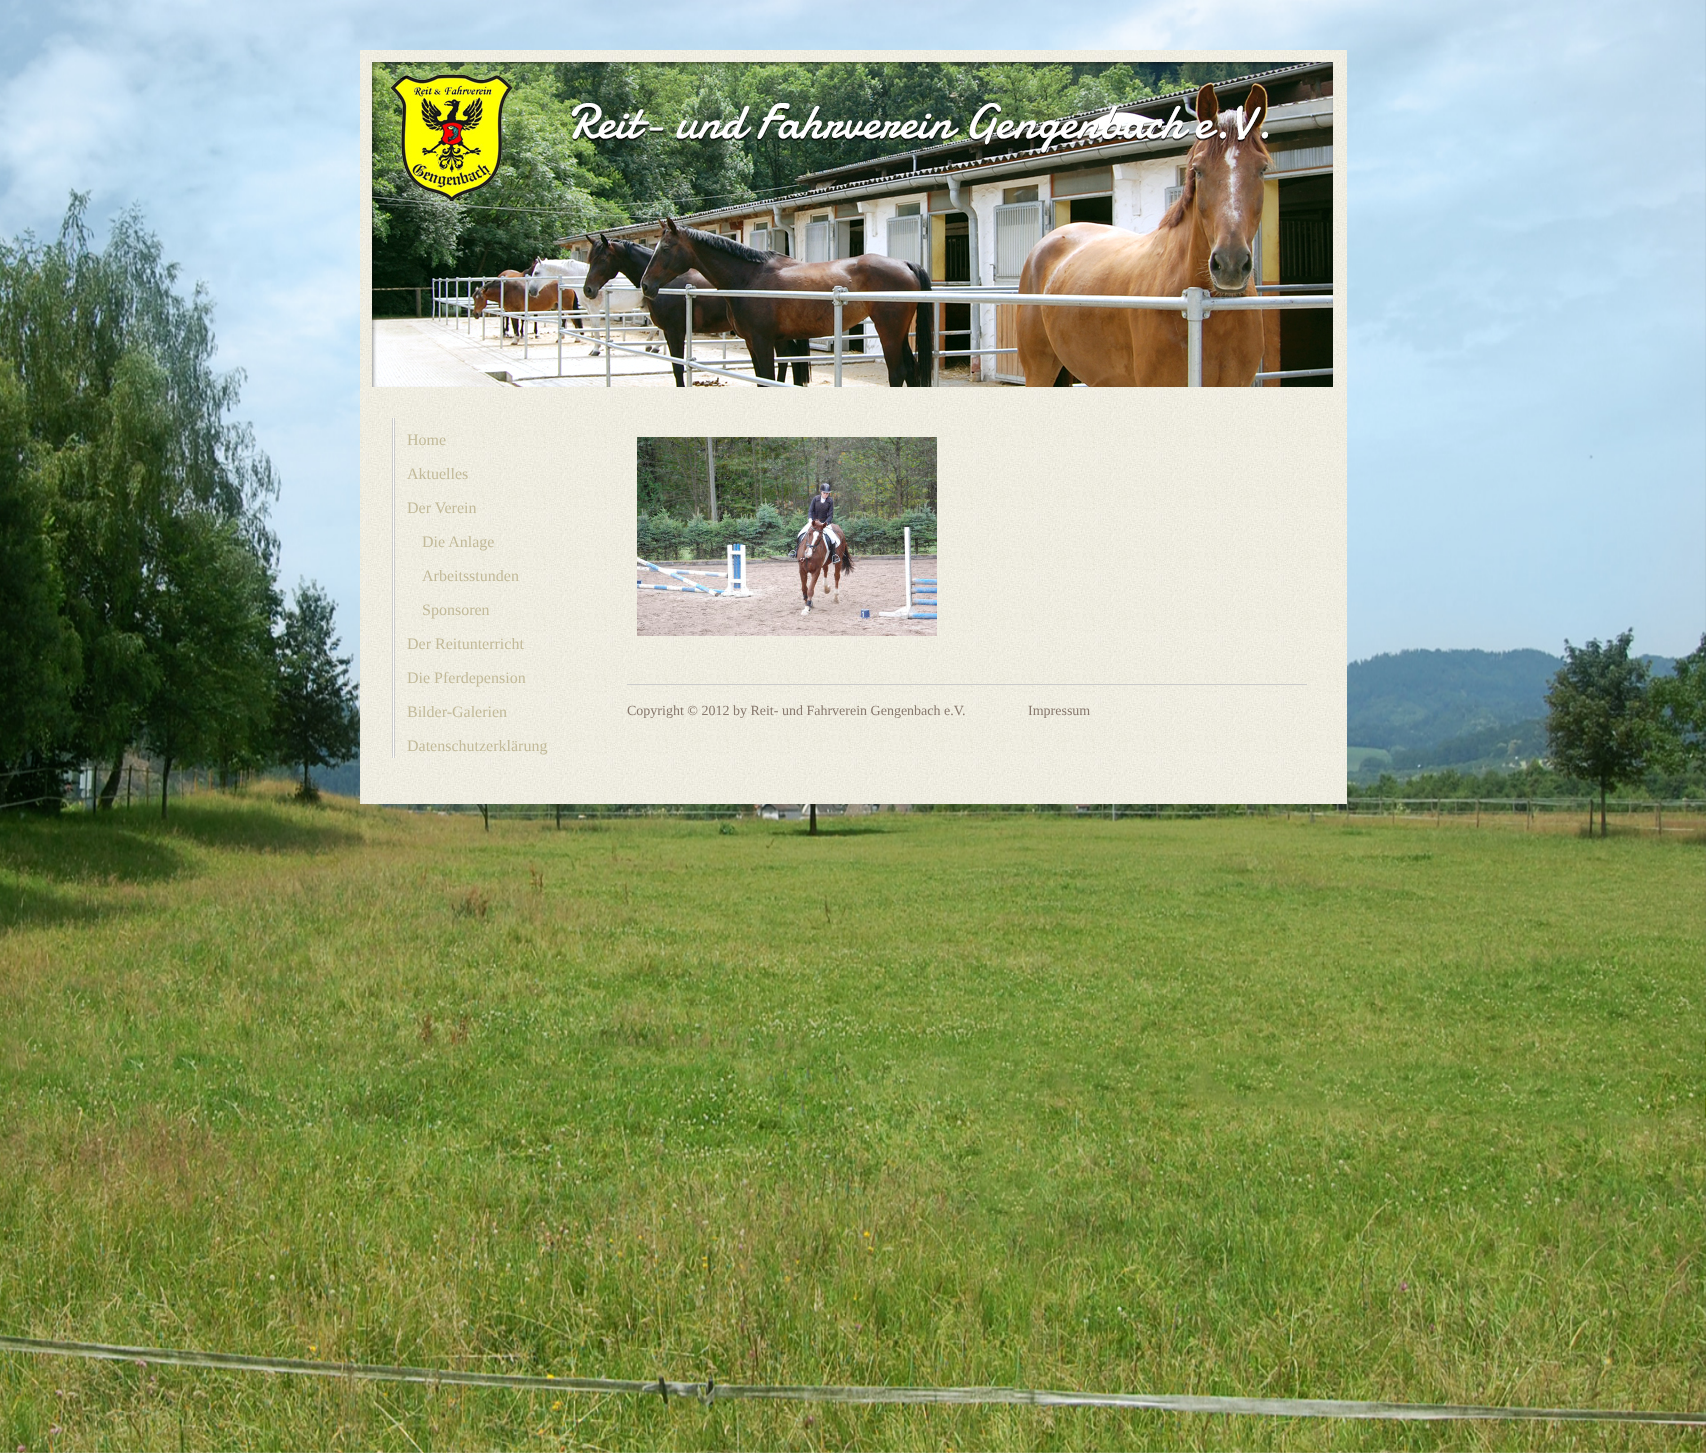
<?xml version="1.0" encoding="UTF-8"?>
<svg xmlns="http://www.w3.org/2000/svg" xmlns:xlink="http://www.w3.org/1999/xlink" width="1706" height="1453">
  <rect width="100%" height="100%" fill="#ffffff" />
  <image x="0" y="0" width="1706" height="1453" xlink:href="image1.png" />
  <image x="360" y="50" width="987" height="337" xlink:href="image2.png" />
  <image x="372" y="62" width="961" height="325" xlink:href="image3.png" />
  <image x="360" y="387" width="987" height="417" xlink:href="image4.png" />
  <image x="392" y="418" width="3" height="340" xlink:href="image5.png" />
  <image x="637" y="437" width="300" height="199" xlink:href="image6.png" />
  <rect x="627" y="684" width="680" height="1" fill="#cccccc" />
  <text x="407" y="445" style="font-family: Liberation Serif; font-size: 16px; fill: #c2ba99">Home</text>
  <text x="407" y="479" style="font-family: Liberation Serif; font-size: 16px; fill: #c2ba99">Aktuelles</text>
  <text x="407" y="513" style="font-family: Liberation Serif; font-size: 16px; fill: #c2ba99">Der Verein</text>
  <text x="422" y="547" style="font-family: Liberation Serif; font-size: 16px; fill: #c2ba99">Die Anlage</text>
  <text x="422" y="581" style="font-family: Liberation Serif; font-size: 16px; fill: #c2ba99">Arbeitsstunden</text>
  <text x="422" y="615" style="font-family: Liberation Serif; font-size: 16px; fill: #c2ba99">Sponsoren</text>
  <text x="407" y="649" style="font-family: Liberation Serif; font-size: 16px; fill: #c2ba99">Der Reitunterricht</text>
  <text x="407" y="683" style="font-family: Liberation Serif; font-size: 16px; fill: #c2ba99">Die Pferdepension</text>
  <text x="407" y="717" style="font-family: Liberation Serif; font-size: 16px; fill: #c2ba99">Bilder-Galerien</text>
  <text x="407" y="751" style="font-family: Liberation Serif; font-size: 16px; fill: #c2ba99">Datenschutzerklärung</text>
  <text x="627" y="715" style="font-family: Liberation Serif; font-size: 14px; fill: #87786d">Copyright © 2012 by Reit- und Fahrverein Gengenbach e.V.</text>
  <text x="1028" y="715" style="font-family: Liberation Serif; font-size: 14px; fill: #87786d">Impressum</text>
</svg>
